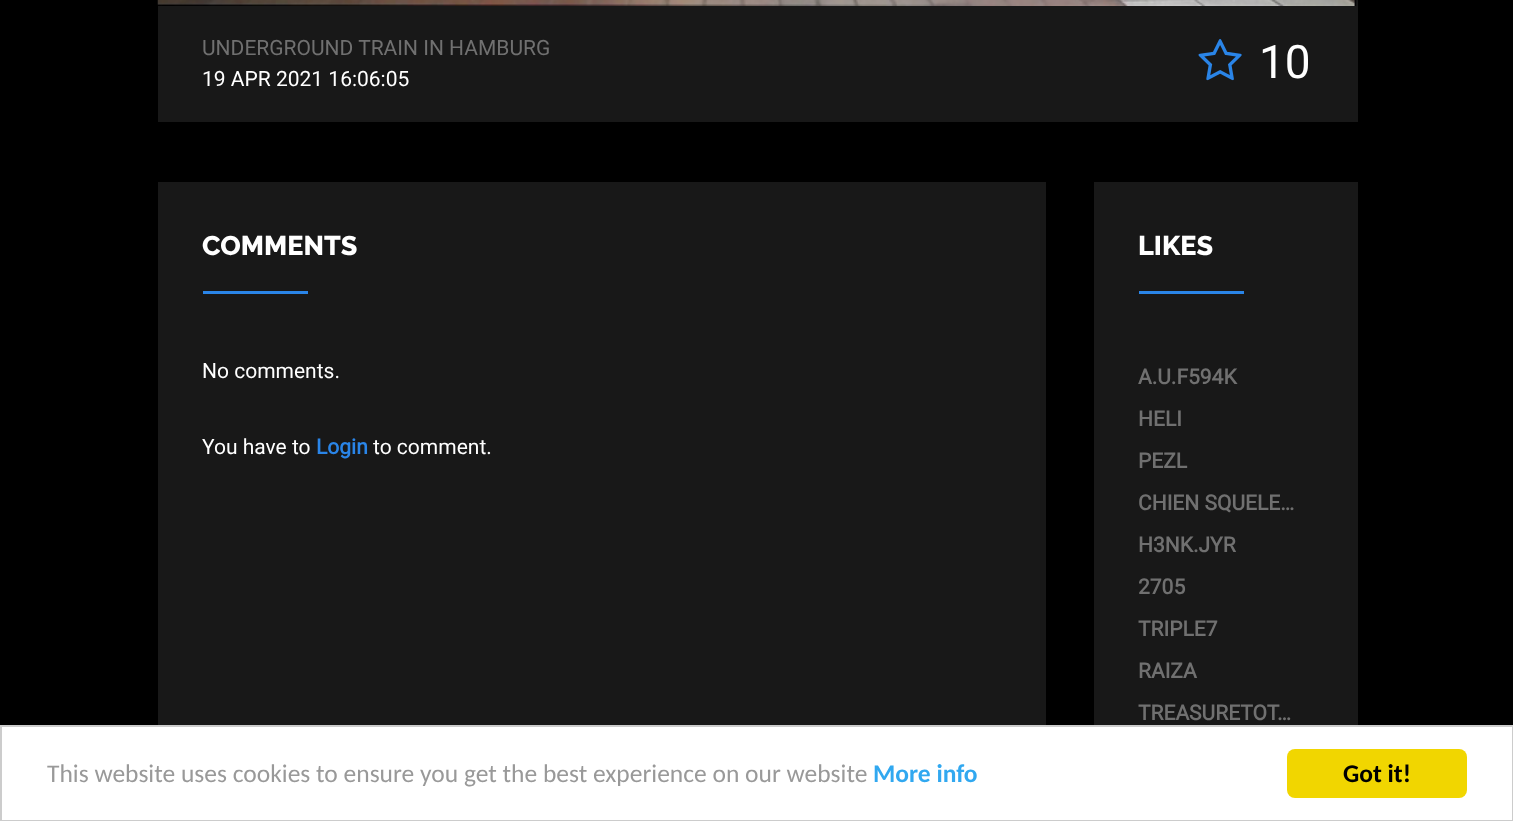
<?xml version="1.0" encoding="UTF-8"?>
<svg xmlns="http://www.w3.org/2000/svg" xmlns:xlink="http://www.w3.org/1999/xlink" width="1513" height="821">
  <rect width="100%" height="100%" fill="#000000" />
  <rect x="158" width="1200" height="122" fill="#181818" />
  <image x="157" y="0" width="1200" height="6" xlink:href="image1.png" />
  <image x="1198" y="39" width="44" height="42" xlink:href="image2.png" />
  <rect x="158" y="182" width="888" height="543" fill="#181818" />
  <rect x="203" y="291" width="105" height="3" fill="#2a85e8" />
  <rect x="1094" y="182" width="264" height="543" fill="#181818" />
  <rect x="1139" y="291" width="105" height="3" fill="#2a85e8" />
  <rect x="1" y="726" width="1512" height="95" fill="#ffffff" stroke="#cccccc" stroke-width="2" />
  <rect x="1287" y="749" width="180" height="49" rx="8" fill="#f1d600" />
  <text x="202" y="55" style="font-family: Roboto; font-size: 21px; fill: #707070">UNDERGROUND TRAIN IN HAMBURG</text>
  <text x="202" y="86" style="font-family: Roboto; font-size: 21px; fill: #ffffff">19 APR 2021 16:06:05</text>
  <text x="1259" y="78" style="font-family: Roboto; font-size: 46px; fill: #ffffff">10</text>
  <text x="202" y="255" style="font-family: Raleway; font-size: 27px; font-weight: 800; fill: #ffffff">COMMENTS</text>
  <text x="202" y="378" style="font-family: Roboto; font-size: 21px; fill: #ffffff">No comments.</text>
  <text x="202" y="454" style="font-family: Roboto; font-size: 21px; fill: #ffffff">You have to</text>
  <text x="316" y="454" style="font-family: Roboto; font-size: 21px; font-weight: bold; fill: #2a85e8">Login</text>
  <text x="373" y="454" style="font-family: Roboto; font-size: 21px; fill: #ffffff">to comment.</text>
  <text x="1138" y="255" style="font-family: Raleway; font-size: 27px; font-weight: 800; fill: #ffffff">LIKES</text>
  <text x="1138" y="384" style="font-family: Roboto; font-size: 21px; font-weight: bold; fill: #707070">A.U.F594K</text>
  <text x="1138" y="426" style="font-family: Roboto; font-size: 21px; font-weight: bold; fill: #707070">HELI</text>
  <text x="1138" y="468" style="font-family: Roboto; font-size: 21px; font-weight: bold; fill: #707070">PEZL</text>
  <text x="1138" y="510" style="font-family: Roboto; font-size: 21px; font-weight: bold; fill: #707070">CHIEN SQUELE…</text>
  <text x="1138" y="552" style="font-family: Roboto; font-size: 21px; font-weight: bold; fill: #707070">H3NK.JYR</text>
  <text x="1138" y="594" style="font-family: Roboto; font-size: 21px; font-weight: bold; fill: #707070">2705</text>
  <text x="1138" y="636" style="font-family: Roboto; font-size: 21px; font-weight: bold; fill: #707070">TRIPLE7</text>
  <text x="1138" y="678" style="font-family: Roboto; font-size: 21px; font-weight: bold; fill: #707070">RAIZA</text>
  <text x="1138" y="720" style="font-family: Roboto; font-size: 21px; font-weight: bold; fill: #707070">TREASURETOT…</text>
  <text x="47" y="782" style="font-family: Carlito; font-size: 25.5px; fill: #999999">This website uses cookies to ensure you get the best experience on our website</text>
  <text x="873" y="782" style="font-family: Carlito; font-size: 25.5px; font-weight: bold; fill: #31a8f0">More info</text>
  <text x="1343" y="782" style="font-family: Carlito; font-size: 25.5px; font-weight: bold; fill: #000000">Got it!</text>
</svg>
